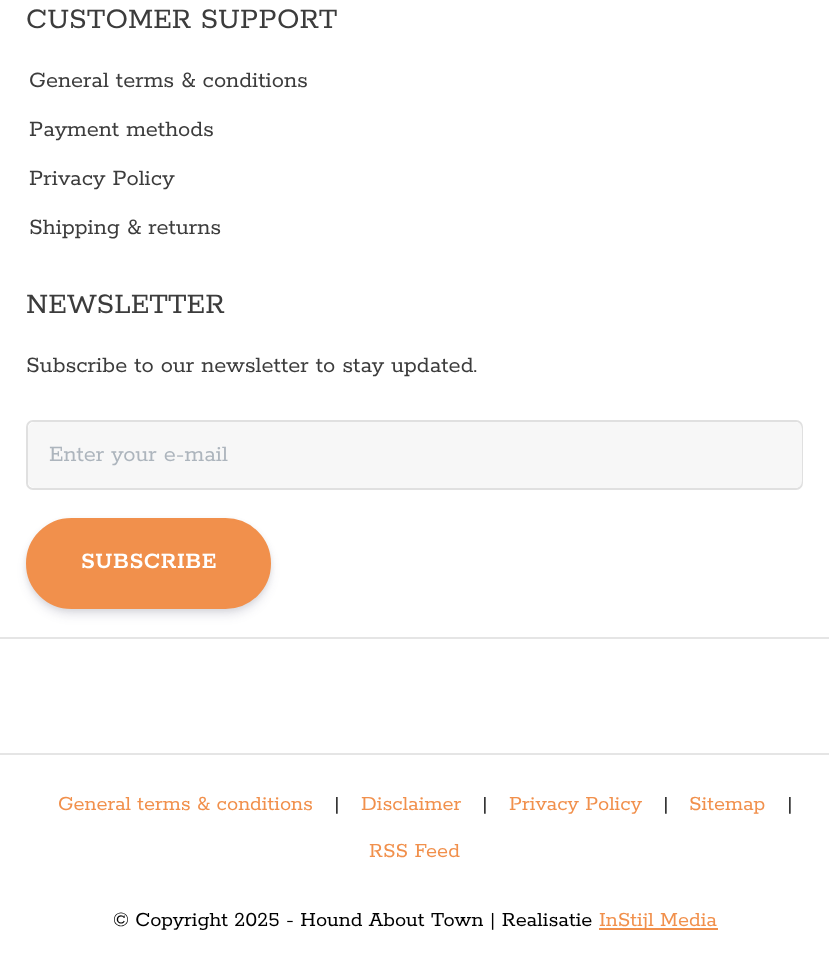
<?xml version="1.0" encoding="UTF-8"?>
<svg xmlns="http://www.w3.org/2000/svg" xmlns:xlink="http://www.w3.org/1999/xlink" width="829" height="966">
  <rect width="100%" height="100%" fill="#ffffff" />
  <rect x="27" y="421" width="775" height="68" rx="6" fill="none" stroke="#e0e0e0" stroke-width="2" />
  <rect x="28" y="422" width="774" height="66" rx="7" fill="#f7f7f7" />
  <rect x="26" y="520" width="245" height="91" rx="45.5" fill="#000000" fill-opacity="0.08" filter="blur(2.5px)" />
  <rect x="26" y="525" width="245" height="91" rx="45.5" fill="#32325d" fill-opacity="0.11" filter="blur(5px)" />
  <rect x="27" y="519" width="243" height="89" rx="44.5" fill="#f1904c" stroke="#f1904c" stroke-width="2" />
  <rect y="637" width="829" height="2" fill="#e5e5e5" />
  <rect y="753" width="829" height="2" fill="#e5e5e5" />
  <rect x="599" y="928" width="119" height="2" fill="#f1904c" />
  <text x="26" y="28" style="font-family: Rokkitt; font-size: 31.5px; fill: #3c3c3c">CUSTOMER SUPPORT</text>
  <text x="29" y="87" style="font-family: Rokkitt; font-size: 24.5px; fill: #3c3c3c">General terms &amp; conditions</text>
  <text x="29" y="136" style="font-family: Rokkitt; font-size: 24.5px; fill: #3c3c3c">Payment methods</text>
  <text x="29" y="185" style="font-family: Rokkitt; font-size: 24.5px; fill: #3c3c3c">Privacy Policy</text>
  <text x="29" y="234" style="font-family: Rokkitt; font-size: 24.5px; fill: #3c3c3c">Shipping &amp; returns</text>
  <text x="26" y="313" style="font-family: Rokkitt; font-size: 31.5px; fill: #3c3c3c">NEWSLETTER</text>
  <text x="26" y="372" style="font-family: Rokkitt; font-size: 24.5px; fill: #3c3c3c">Subscribe to our newsletter to stay updated.</text>
  <text x="49" y="461" style="font-family: Rokkitt; font-size: 24.5px; fill: #adb5bd">Enter your e-mail</text>
  <text x="81" y="568" style="font-family: Rokkitt; font-size: 24.5px; font-weight: 600; letter-spacing: 0.5px; fill: #ffffff">SUBSCRIBE</text>
  <text x="58" y="810" style="font-family: Rokkitt; font-size: 22.4px; fill: #f1904c">General terms &amp; conditions</text>
  <text x="334" y="810" style="font-family: Rokkitt; font-size: 22.4px; fill: #000000">|</text>
  <text x="361" y="810" style="font-family: Rokkitt; font-size: 22.4px; fill: #f1904c">Disclaimer</text>
  <text x="482" y="810" style="font-family: Rokkitt; font-size: 22.4px; fill: #000000">|</text>
  <text x="509" y="810" style="font-family: Rokkitt; font-size: 22.4px; fill: #f1904c">Privacy Policy</text>
  <text x="663" y="810" style="font-family: Rokkitt; font-size: 22.4px; fill: #000000">|</text>
  <text x="689" y="810" style="font-family: Rokkitt; font-size: 22.4px; fill: #f1904c">Sitemap</text>
  <text x="787" y="810" style="font-family: Rokkitt; font-size: 22.4px; fill: #000000">|</text>
  <text x="369" y="857" style="font-family: Rokkitt; font-size: 22.4px; fill: #f1904c">RSS Feed</text>
  <text x="113" y="926" style="font-family: Rokkitt; font-size: 22.4px; fill: #000000">© Copyright 2025 - Hound About Town | Realisatie</text>
  <text x="599" y="926" style="font-family: Rokkitt; font-size: 22.4px; fill: #f1904c">InStijl Media</text>
</svg>
